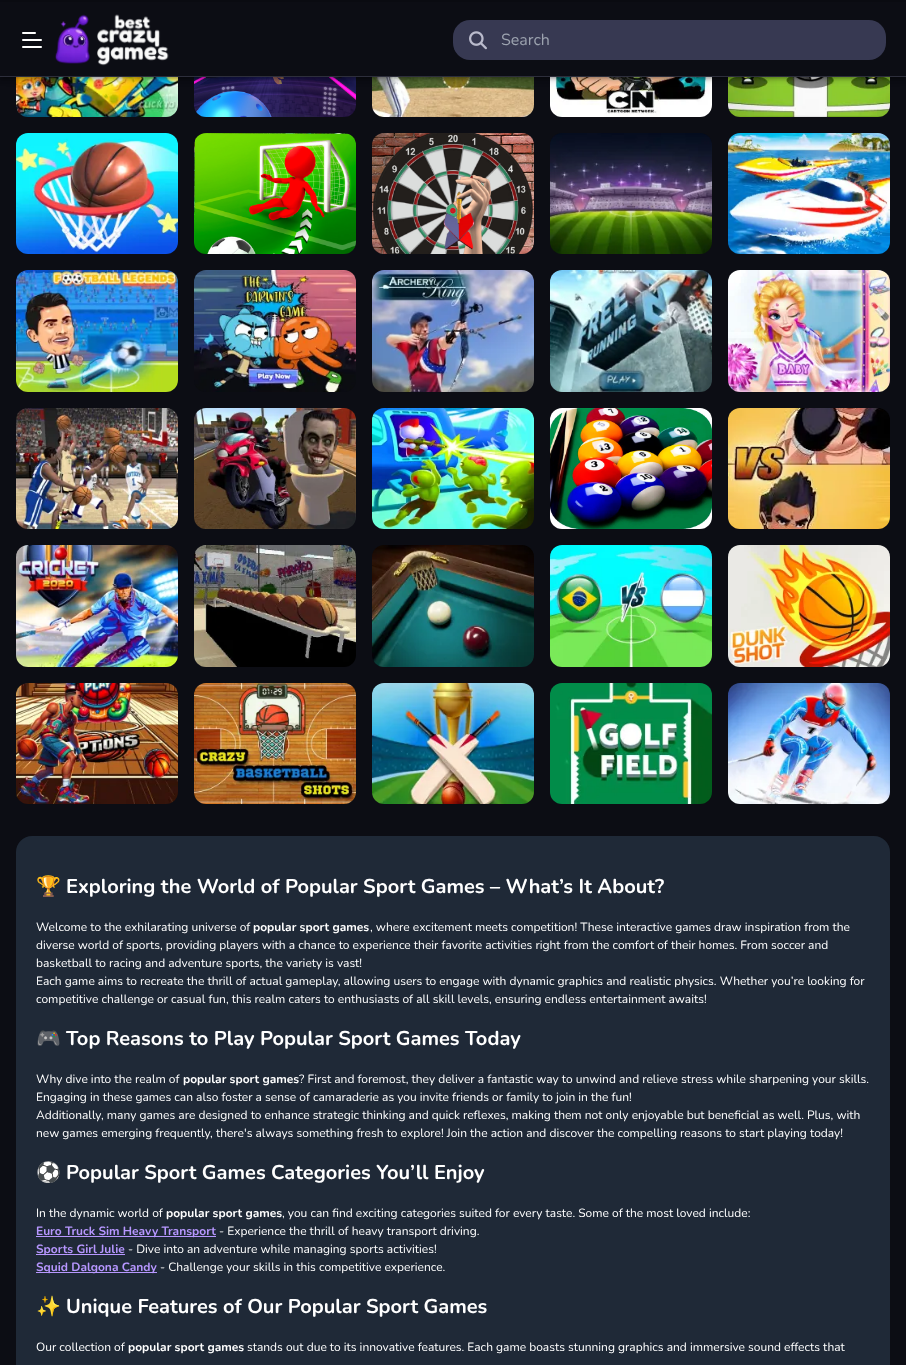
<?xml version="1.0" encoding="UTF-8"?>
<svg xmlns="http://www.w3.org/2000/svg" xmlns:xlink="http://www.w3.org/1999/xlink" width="906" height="1365">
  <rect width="100%" height="100%" fill="#0c0d14" />
  <image x="16" y="77" width="162" height="40" xlink:href="image4.png" />
  <image x="194" y="77" width="162" height="40" xlink:href="image5.png" />
  <image x="372" y="77" width="162" height="40" xlink:href="image6.png" />
  <image x="550" y="77" width="162" height="40" xlink:href="image7.png" />
  <image x="728" y="77" width="162" height="40" xlink:href="image8.png" />
  <rect y="1" width="906" height="77" fill="#000000" fill-opacity="0.12" filter="blur(4px)" />
  <rect y="3" width="906" height="77" fill="#000000" fill-opacity="0.14" filter="blur(2px)" />
  <rect x="2" y="5" width="902" height="73" fill="#000000" fill-opacity="0.2" filter="blur(1.5px)" />
  <rect y="2" width="906" height="74" fill="#0c0d14" />
  <rect y="76" width="906" height="1" fill="#2d2e3b" />
  <image x="22" y="32" width="20" height="16" xlink:href="image1.png" />
  <image x="55" y="14" width="114" height="52" xlink:href="image2.png" />
  <rect x="453" y="20" width="433" height="40" rx="17" fill="#373952" />
  <image x="469" y="31" width="18" height="19" xlink:href="image3.png" />
  <image x="16" y="133" width="162" height="121" xlink:href="image9.png" />
  <image x="194" y="133" width="162" height="121" xlink:href="image10.png" />
  <image x="372" y="133" width="162" height="121" xlink:href="image11.png" />
  <image x="550" y="133" width="162" height="121" xlink:href="image12.png" />
  <image x="728" y="133" width="162" height="121" xlink:href="image13.png" />
  <image x="16" y="270" width="162" height="122" xlink:href="image14.png" />
  <image x="194" y="270" width="162" height="122" xlink:href="image15.png" />
  <image x="372" y="270" width="162" height="122" xlink:href="image16.png" />
  <image x="550" y="270" width="162" height="122" xlink:href="image17.png" />
  <image x="728" y="270" width="162" height="122" xlink:href="image18.png" />
  <image x="16" y="408" width="162" height="121" xlink:href="image19.png" />
  <image x="194" y="408" width="162" height="121" xlink:href="image20.png" />
  <image x="372" y="408" width="162" height="121" xlink:href="image21.png" />
  <image x="550" y="408" width="162" height="121" xlink:href="image22.png" />
  <image x="728" y="408" width="162" height="121" xlink:href="image23.png" />
  <image x="16" y="545" width="162" height="122" xlink:href="image24.png" />
  <image x="194" y="545" width="162" height="122" xlink:href="image25.png" />
  <image x="372" y="545" width="162" height="122" xlink:href="image26.png" />
  <image x="550" y="545" width="162" height="122" xlink:href="image27.png" />
  <image x="728" y="545" width="162" height="122" xlink:href="image28.png" />
  <image x="16" y="683" width="162" height="121" xlink:href="image29.png" />
  <image x="194" y="683" width="162" height="121" xlink:href="image30.png" />
  <image x="372" y="683" width="162" height="121" xlink:href="image31.png" />
  <image x="550" y="683" width="162" height="121" xlink:href="image32.png" />
  <image x="728" y="683" width="162" height="121" xlink:href="image33.png" />
  <rect x="16" y="836" width="874" height="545" rx="16" fill="#1f2937" />
  <rect x="36" y="1236" width="180" height="1" fill="#b797ff" />
  <rect x="36" y="1254" width="89" height="1" fill="#b797ff" />
  <rect x="36" y="1272" width="121" height="1" fill="#b797ff" />
  <text x="501" y="45" style="font-family: Nunito; font-size: 16px; fill: #9ca3af">Search</text>
  <text x="36" y="893" style="font-family: Noto Color Emoji; font-size: 20px; font-weight: bold; fill: #ffffff">🏆</text>
  <text x="66" y="893" style="font-family: Nunito; font-size: 20px; font-weight: bold; fill: #ffffff">Exploring the World of Popular Sport Games – What’s It About?</text>
  <text x="36" y="931" style="font-family: Nunito; font-size: 12px; fill: #ffffff">Welcome to the exhilarating universe of</text>
  <text x="253" y="931" style="font-family: Nunito; font-size: 12px; font-weight: bold; fill: #ffffff">popular sport games</text>
  <text x="370" y="931" style="font-family: Nunito; font-size: 12px; fill: #ffffff">, where excitement meets competition! These interactive games draw inspiration from the</text>
  <text x="36" y="949" style="font-family: Nunito; font-size: 12px; fill: #ffffff">diverse world of sports, providing players with a chance to experience their favorite activities right from the comfort of their homes. From soccer and</text>
  <text x="36" y="967" style="font-family: Nunito; font-size: 12px; fill: #ffffff">basketball to racing and adventure sports, the variety is vast!</text>
  <text x="36" y="985" style="font-family: Nunito; font-size: 12px; fill: #ffffff">Each game aims to recreate the thrill of actual gameplay, allowing users to engage with dynamic graphics and realistic physics. Whether you’re looking for</text>
  <text x="36" y="1003" style="font-family: Nunito; font-size: 12px; fill: #ffffff">competitive challenge or casual fun, this realm caters to enthusiasts of all skill levels, ensuring endless entertainment awaits!</text>
  <text x="36" y="1045" style="font-family: Noto Color Emoji; font-size: 20px; font-weight: bold; fill: #ffffff">🎮</text>
  <text x="66" y="1045" style="font-family: Nunito; font-size: 20px; font-weight: bold; fill: #ffffff">Top Reasons to Play Popular Sport Games Today</text>
  <text x="36" y="1083" style="font-family: Nunito; font-size: 12px; fill: #ffffff">Why dive into the realm of</text>
  <text x="183" y="1083" style="font-family: Nunito; font-size: 12px; font-weight: bold; fill: #ffffff">popular sport games</text>
  <text x="299" y="1083" style="font-family: Nunito; font-size: 12px; fill: #ffffff">? First and foremost, they deliver a fantastic way to unwind and relieve stress while sharpening your skills.</text>
  <text x="36" y="1101" style="font-family: Nunito; font-size: 12px; fill: #ffffff">Engaging in these games can also foster a sense of camaraderie as you invite friends or family to join in the fun!</text>
  <text x="36" y="1119" style="font-family: Nunito; font-size: 12px; fill: #ffffff">Additionally, many games are designed to enhance strategic thinking and quick reflexes, making them not only enjoyable but beneficial as well. Plus, with</text>
  <text x="36" y="1137" style="font-family: Nunito; font-size: 12px; fill: #ffffff">new games emerging frequently, there's always something fresh to explore! Join the action and discover the compelling reasons to start playing today!</text>
  <text x="36" y="1179" style="font-family: Noto Color Emoji; font-size: 20px; font-weight: bold; fill: #ffffff">⚽</text>
  <text x="66" y="1179" style="font-family: Nunito; font-size: 20px; font-weight: bold; fill: #ffffff">Popular Sport Games Categories You’ll Enjoy</text>
  <text x="36" y="1217" style="font-family: Nunito; font-size: 12px; fill: #ffffff">In the dynamic world of</text>
  <text x="166" y="1217" style="font-family: Nunito; font-size: 12px; font-weight: bold; fill: #ffffff">popular sport games</text>
  <text x="282" y="1217" style="font-family: Nunito; font-size: 12px; fill: #ffffff">, you can find exciting categories suited for every taste. Some of the most loved include:</text>
  <text x="36" y="1235" style="font-family: Nunito; font-size: 12px; font-weight: bold; fill: #b797ff">Euro Truck Sim Heavy Transport</text>
  <text x="219" y="1235" style="font-family: Nunito; font-size: 12px; fill: #ffffff">- Experience the thrill of heavy transport driving.</text>
  <text x="36" y="1253" style="font-family: Nunito; font-size: 12px; font-weight: bold; fill: #b797ff">Sports Girl Julie</text>
  <text x="128" y="1253" style="font-family: Nunito; font-size: 12px; fill: #ffffff">- Dive into an adventure while managing sports activities!</text>
  <text x="36" y="1271" style="font-family: Nunito; font-size: 12px; font-weight: bold; fill: #b797ff">Squid Dalgona Candy</text>
  <text x="160" y="1271" style="font-family: Nunito; font-size: 12px; fill: #ffffff">- Challenge your skills in this competitive experience.</text>
  <text x="36" y="1313" style="font-family: Noto Color Emoji; font-size: 20px; font-weight: bold; fill: #ffffff">✨</text>
  <text x="66" y="1313" style="font-family: Nunito; font-size: 20px; font-weight: bold; fill: #ffffff">Unique Features of Our Popular Sport Games</text>
  <text x="36" y="1351" style="font-family: Nunito; font-size: 12px; fill: #ffffff">Our collection of</text>
  <text x="128" y="1351" style="font-family: Nunito; font-size: 12px; font-weight: bold; fill: #ffffff">popular sport games</text>
  <text x="247" y="1351" style="font-family: Nunito; font-size: 12px; fill: #ffffff">stands out due to its innovative features. Each game boasts stunning graphics and immersive sound effects that</text>
</svg>
